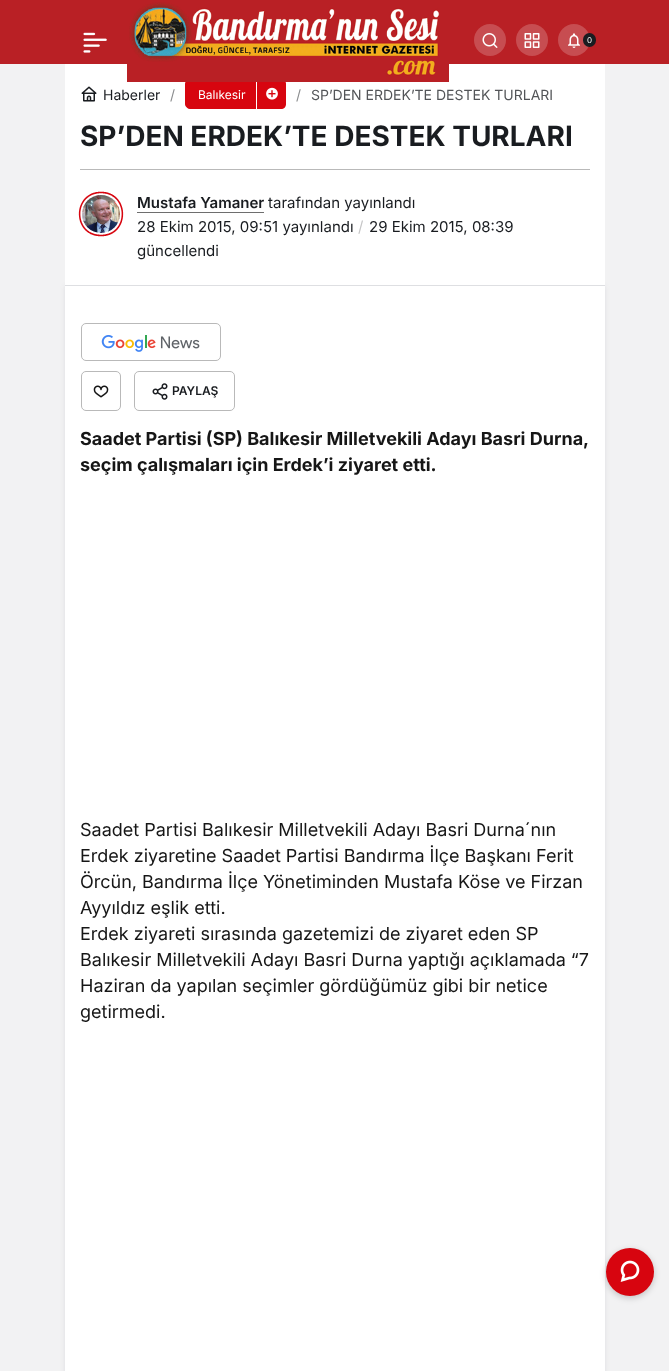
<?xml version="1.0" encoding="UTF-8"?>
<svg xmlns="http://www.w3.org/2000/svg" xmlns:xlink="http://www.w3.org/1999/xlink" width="669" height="1371">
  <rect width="100%" height="100%" fill="#f2f2f3" />
  <rect width="669" height="64" fill="#b92025" />
  <image x="83" y="32" width="24" height="21" xlink:href="image1.png" />
  <rect x="65" y="286" width="540" height="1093" fill="#32353d" fill-opacity="0.1" filter="blur(2.5px)" />
  <rect x="65" y="64" width="540" height="221" fill="#ffffff" />
  <path d="M 190 79.5 h 68.5 v 29 h -68.5 c -2.5 0 -4.5 -2 -4.5 -4.5 v -20 c 0 -2.5 2 -4.5 4.5 -4.5 z" fill="#d7050f" stroke="#d7050f" />
  <path d="M 256 79 h 25 c 3 0 5 2 5 5 v 20 c 0 3 -2 5 -5 5 h -25 z" fill="#d7050f" />
  <rect x="256" y="79" width="1" height="30" fill="#ffffff" />
  <image x="127" y="2" width="322" height="80" xlink:href="image2.png" />
  <circle cx="490" cy="40" r="16" fill="#c74d51" />
  <image x="482" y="33" width="16" height="15" xlink:href="image3.png" />
  <circle cx="532" cy="40" r="16" fill="#c74d51" />
  <image x="524" y="33" width="16" height="15" xlink:href="image4.png" />
  <circle cx="574" cy="40" r="16" fill="#c74d51" />
  <image x="568" y="33" width="12" height="15" xlink:href="image5.png" />
  <rect x="583" y="33" width="13" height="14" rx="6.5" fill="#191c20" />
  <rect x="65" y="285" width="540" height="1" fill="#dedfe2" />
  <image x="81" y="86" width="16" height="16" xlink:href="image6.png" />
  <image x="266" y="87" width="12" height="13" xlink:href="image7.png" />
  <rect x="80" y="169" width="510" height="1" fill="#b9b9b9" />
  <image x="82" y="195" width="38" height="38" xlink:href="image8.png" />
  <path d="M 101 192.5 c 28.5 0 28.5 43 0 43 c -28.5 0 -28.5 -43 0 -43 z" fill="none" stroke="#d7050f" stroke-width="1.6" stroke-linecap="round" stroke-dasharray="0.54 0.54" />
  <rect x="137" y="212" width="127" height="1" fill="#6e6e6e" />
  <rect x="65" y="286" width="540" height="1085" fill="#ffffff" />
  <image x="101" y="335" width="99" height="17" xlink:href="image9.png" />
  <rect x="81.5" y="323.5" width="139" height="37" rx="4.5" fill="none" stroke="#b9b9b9" />
  <rect x="81.5" y="371.5" width="39" height="39" rx="4.5" fill="none" stroke="#b9b9b9" />
  <image x="93" y="385" width="16" height="13" xlink:href="image10.png" />
  <rect x="134.5" y="371.5" width="100" height="39" rx="4.5" fill="none" stroke="#b9b9b9" />
  <image x="152" y="383" width="16" height="17" xlink:href="image11.png" />
  <rect x="606" y="1250" width="48" height="48" rx="24" fill="#000000" fill-opacity="0.2" filter="blur(3px)" />
  <circle cx="630" cy="1272" r="24" fill="#d7050f" />
  <image x="620" y="1260" width="20" height="22" xlink:href="image12.png" />
  <text x="587" y="43" style="font-family: Inter; font-size: 8px; fill: #ffffff">0</text>
  <text x="103" y="100" style="font-family: Inter; font-size: 14px; fill: #191c20">Haberler</text>
  <text x="170" y="100" style="font-family: Inter; font-size: 14px; fill: #8c8e90">/</text>
  <text x="198" y="99" style="font-family: Inter; font-size: 12px; fill: #ffffff">Balıkesir</text>
  <text x="296" y="100" style="font-family: Inter; font-size: 14px; fill: #8c8e90">/</text>
  <text x="311" y="100" style="font-family: Inter; font-size: 14px; fill: #535558">SP’DEN ERDEK’TE DESTEK TURLARI</text>
  <text x="80" y="146" style="font-family: Inter; font-size: 28px; font-weight: bold; fill: #191c20">SP’DEN ERDEK’TE DESTEK TURLARI</text>
  <text x="137" y="208" style="font-family: Inter; font-size: 15px; font-weight: 600; fill: #191c20">Mustafa Yamaner</text>
  <text x="268" y="208" style="font-family: Inter; font-size: 15px; fill: #191c20">tarafından yayınlandı</text>
  <text x="137" y="232" style="font-family: Inter; font-size: 15px; fill: #191c20">28 Ekim 2015, 09:51 yayınlandı</text>
  <text x="358" y="232" style="font-family: Inter; font-size: 15px; fill: #c6c6c7">/</text>
  <text x="369" y="232" style="font-family: Inter; font-size: 15px; fill: #191c20">29 Ekim 2015, 08:39</text>
  <text x="137" y="256" style="font-family: Inter; font-size: 15px; fill: #191c20">güncellendi</text>
  <text x="172" y="395" style="font-family: Inter; font-size: 12px; font-weight: 600; fill: #191c20">PAYLAŞ</text>
  <text x="80" y="445" style="font-family: Inter; font-size: 18px; font-weight: bold; fill: #161616">Saadet Partisi (SP) Balıkesir Milletvekili Adayı Basri Durna,</text>
  <text x="80" y="471" style="font-family: Inter; font-size: 18px; font-weight: bold; fill: #161616">seçim çalışmaları için Erdek’i ziyaret etti.</text>
  <text x="80" y="836" style="font-family: Inter; font-size: 18px; fill: #161616">Saadet Partisi Balıkesir Milletvekili Adayı Basri Durna´nın</text>
  <text x="80" y="862" style="font-family: Inter; font-size: 18px; fill: #161616">Erdek ziyaretine Saadet Partisi Bandırma İlçe Başkanı Ferit</text>
  <text x="80" y="888" style="font-family: Inter; font-size: 18px; fill: #161616">Örcün, Bandırma İlçe Yönetiminden Mustafa Köse ve Firzan</text>
  <text x="80" y="914" style="font-family: Inter; font-size: 18px; fill: #161616">Ayyıldız eşlik etti.</text>
  <text x="80" y="940" style="font-family: Inter; font-size: 18px; fill: #161616">Erdek ziyareti sırasında gazetemizi de ziyaret eden SP</text>
  <text x="80" y="966" style="font-family: Inter; font-size: 18px; fill: #161616">Balıkesir Milletvekili Adayı Basri Durna yaptığı açıklamada “7</text>
  <text x="80" y="992" style="font-family: Inter; font-size: 18px; fill: #161616">Haziran da yapılan seçimler gördüğümüz gibi bir netice</text>
  <text x="80" y="1018" style="font-family: Inter; font-size: 18px; fill: #161616">getirmedi.</text>
</svg>
